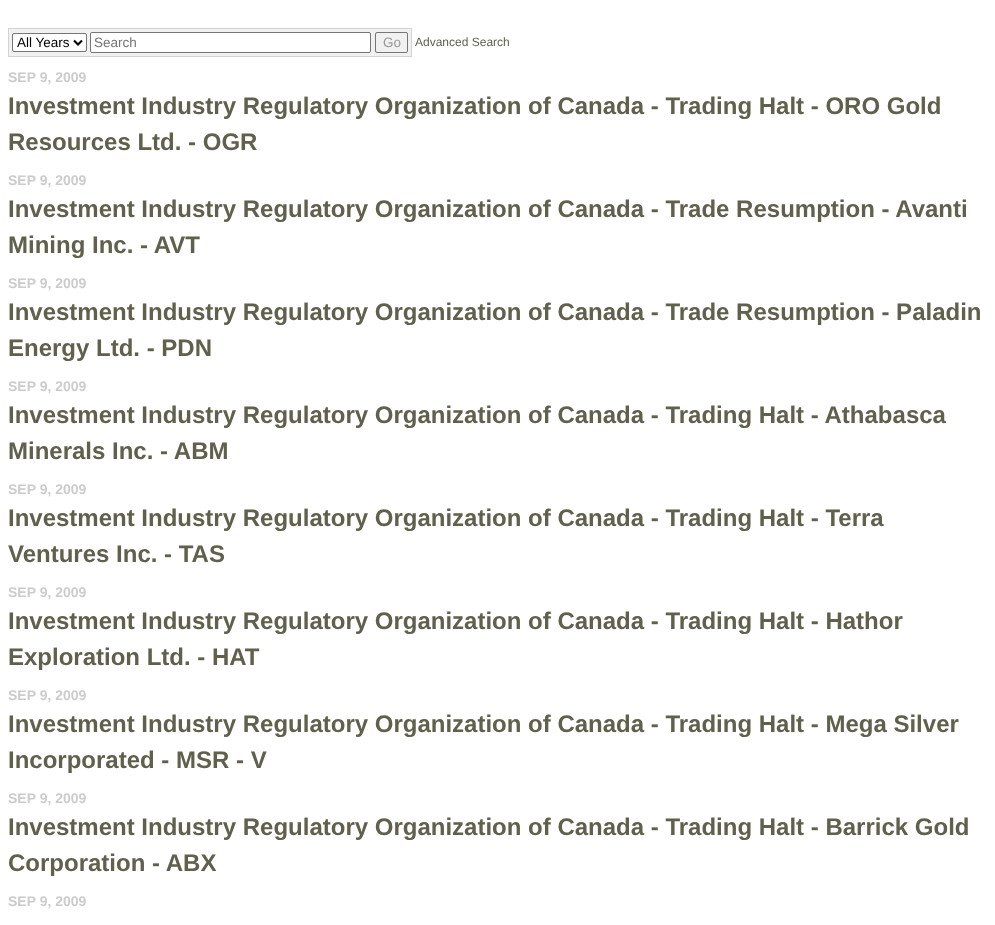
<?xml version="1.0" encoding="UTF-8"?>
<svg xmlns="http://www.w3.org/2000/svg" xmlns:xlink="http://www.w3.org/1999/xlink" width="995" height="925">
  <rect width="100%" height="100%" fill="#ffffff" />
  <rect x="8.5" y="28.5" width="403" height="28" fill="#f1f1f1" stroke="#d3d3d3" />
  <rect x="12.5" y="33.5" width="74" height="18" rx="1.5" fill="#ffffff" stroke="#767676" />
  <path d="M 74 40.5 l 4 4 l 4 -4" fill="none" stroke="#000000" stroke-width="2" />
  <rect x="90.5" y="32.5" width="280" height="20" rx="1.5" fill="#ffffff" stroke="#767676" />
  <rect x="375.5" y="32.5" width="32" height="20" rx="1.5" fill="none" stroke="#767676" />
  <text x="17" y="47" style="font-family: Liberation Sans; font-size: 13.5px; fill: #000000">All Years</text>
  <text x="94" y="47" style="font-family: Liberation Sans; font-size: 13.5px; fill: #757575">Search</text>
  <text x="383" y="47" style="font-family: Liberation Sans; font-size: 13.5px; fill: #999999">Go</text>
  <text x="415" y="46" style="font-family: Liberation Sans; font-size: 12px; fill: #60604d">Advanced Search</text>
  <text x="8" y="82" style="font-family: Liberation Sans; font-size: 14px; font-weight: bold; fill: #cccccc">SEP 9, 2009</text>
  <text x="8" y="114" style="font-family: Liberation Sans; font-size: 24px; font-weight: bold; fill: #60604d">Investment Industry Regulatory Organization of Canada - Trading Halt - ORO Gold</text>
  <text x="8" y="150" style="font-family: Liberation Sans; font-size: 24px; font-weight: bold; fill: #60604d">Resources Ltd. - OGR</text>
  <text x="8" y="185" style="font-family: Liberation Sans; font-size: 14px; font-weight: bold; fill: #cccccc">SEP 9, 2009</text>
  <text x="8" y="217" style="font-family: Liberation Sans; font-size: 24px; font-weight: bold; fill: #60604d">Investment Industry Regulatory Organization of Canada - Trade Resumption - Avanti</text>
  <text x="8" y="253" style="font-family: Liberation Sans; font-size: 24px; font-weight: bold; fill: #60604d">Mining Inc. - AVT</text>
  <text x="8" y="288" style="font-family: Liberation Sans; font-size: 14px; font-weight: bold; fill: #cccccc">SEP 9, 2009</text>
  <text x="8" y="320" style="font-family: Liberation Sans; font-size: 24px; font-weight: bold; fill: #60604d">Investment Industry Regulatory Organization of Canada - Trade Resumption - Paladin</text>
  <text x="8" y="356" style="font-family: Liberation Sans; font-size: 24px; font-weight: bold; fill: #60604d">Energy Ltd. - PDN</text>
  <text x="8" y="391" style="font-family: Liberation Sans; font-size: 14px; font-weight: bold; fill: #cccccc">SEP 9, 2009</text>
  <text x="8" y="423" style="font-family: Liberation Sans; font-size: 24px; font-weight: bold; fill: #60604d">Investment Industry Regulatory Organization of Canada - Trading Halt - Athabasca</text>
  <text x="8" y="459" style="font-family: Liberation Sans; font-size: 24px; font-weight: bold; fill: #60604d">Minerals Inc. - ABM</text>
  <text x="8" y="494" style="font-family: Liberation Sans; font-size: 14px; font-weight: bold; fill: #cccccc">SEP 9, 2009</text>
  <text x="8" y="526" style="font-family: Liberation Sans; font-size: 24px; font-weight: bold; fill: #60604d">Investment Industry Regulatory Organization of Canada - Trading Halt - Terra</text>
  <text x="8" y="562" style="font-family: Liberation Sans; font-size: 24px; font-weight: bold; fill: #60604d">Ventures Inc. - TAS</text>
  <text x="8" y="597" style="font-family: Liberation Sans; font-size: 14px; font-weight: bold; fill: #cccccc">SEP 9, 2009</text>
  <text x="8" y="629" style="font-family: Liberation Sans; font-size: 24px; font-weight: bold; fill: #60604d">Investment Industry Regulatory Organization of Canada - Trading Halt - Hathor</text>
  <text x="8" y="665" style="font-family: Liberation Sans; font-size: 24px; font-weight: bold; fill: #60604d">Exploration Ltd. - HAT</text>
  <text x="8" y="700" style="font-family: Liberation Sans; font-size: 14px; font-weight: bold; fill: #cccccc">SEP 9, 2009</text>
  <text x="8" y="732" style="font-family: Liberation Sans; font-size: 24px; font-weight: bold; fill: #60604d">Investment Industry Regulatory Organization of Canada - Trading Halt - Mega Silver</text>
  <text x="8" y="768" style="font-family: Liberation Sans; font-size: 24px; font-weight: bold; fill: #60604d">Incorporated - MSR - V</text>
  <text x="8" y="803" style="font-family: Liberation Sans; font-size: 14px; font-weight: bold; fill: #cccccc">SEP 9, 2009</text>
  <text x="8" y="835" style="font-family: Liberation Sans; font-size: 24px; font-weight: bold; fill: #60604d">Investment Industry Regulatory Organization of Canada - Trading Halt - Barrick Gold</text>
  <text x="8" y="871" style="font-family: Liberation Sans; font-size: 24px; font-weight: bold; fill: #60604d">Corporation - ABX</text>
  <text x="8" y="906" style="font-family: Liberation Sans; font-size: 14px; font-weight: bold; fill: #cccccc">SEP 9, 2009</text>
</svg>
